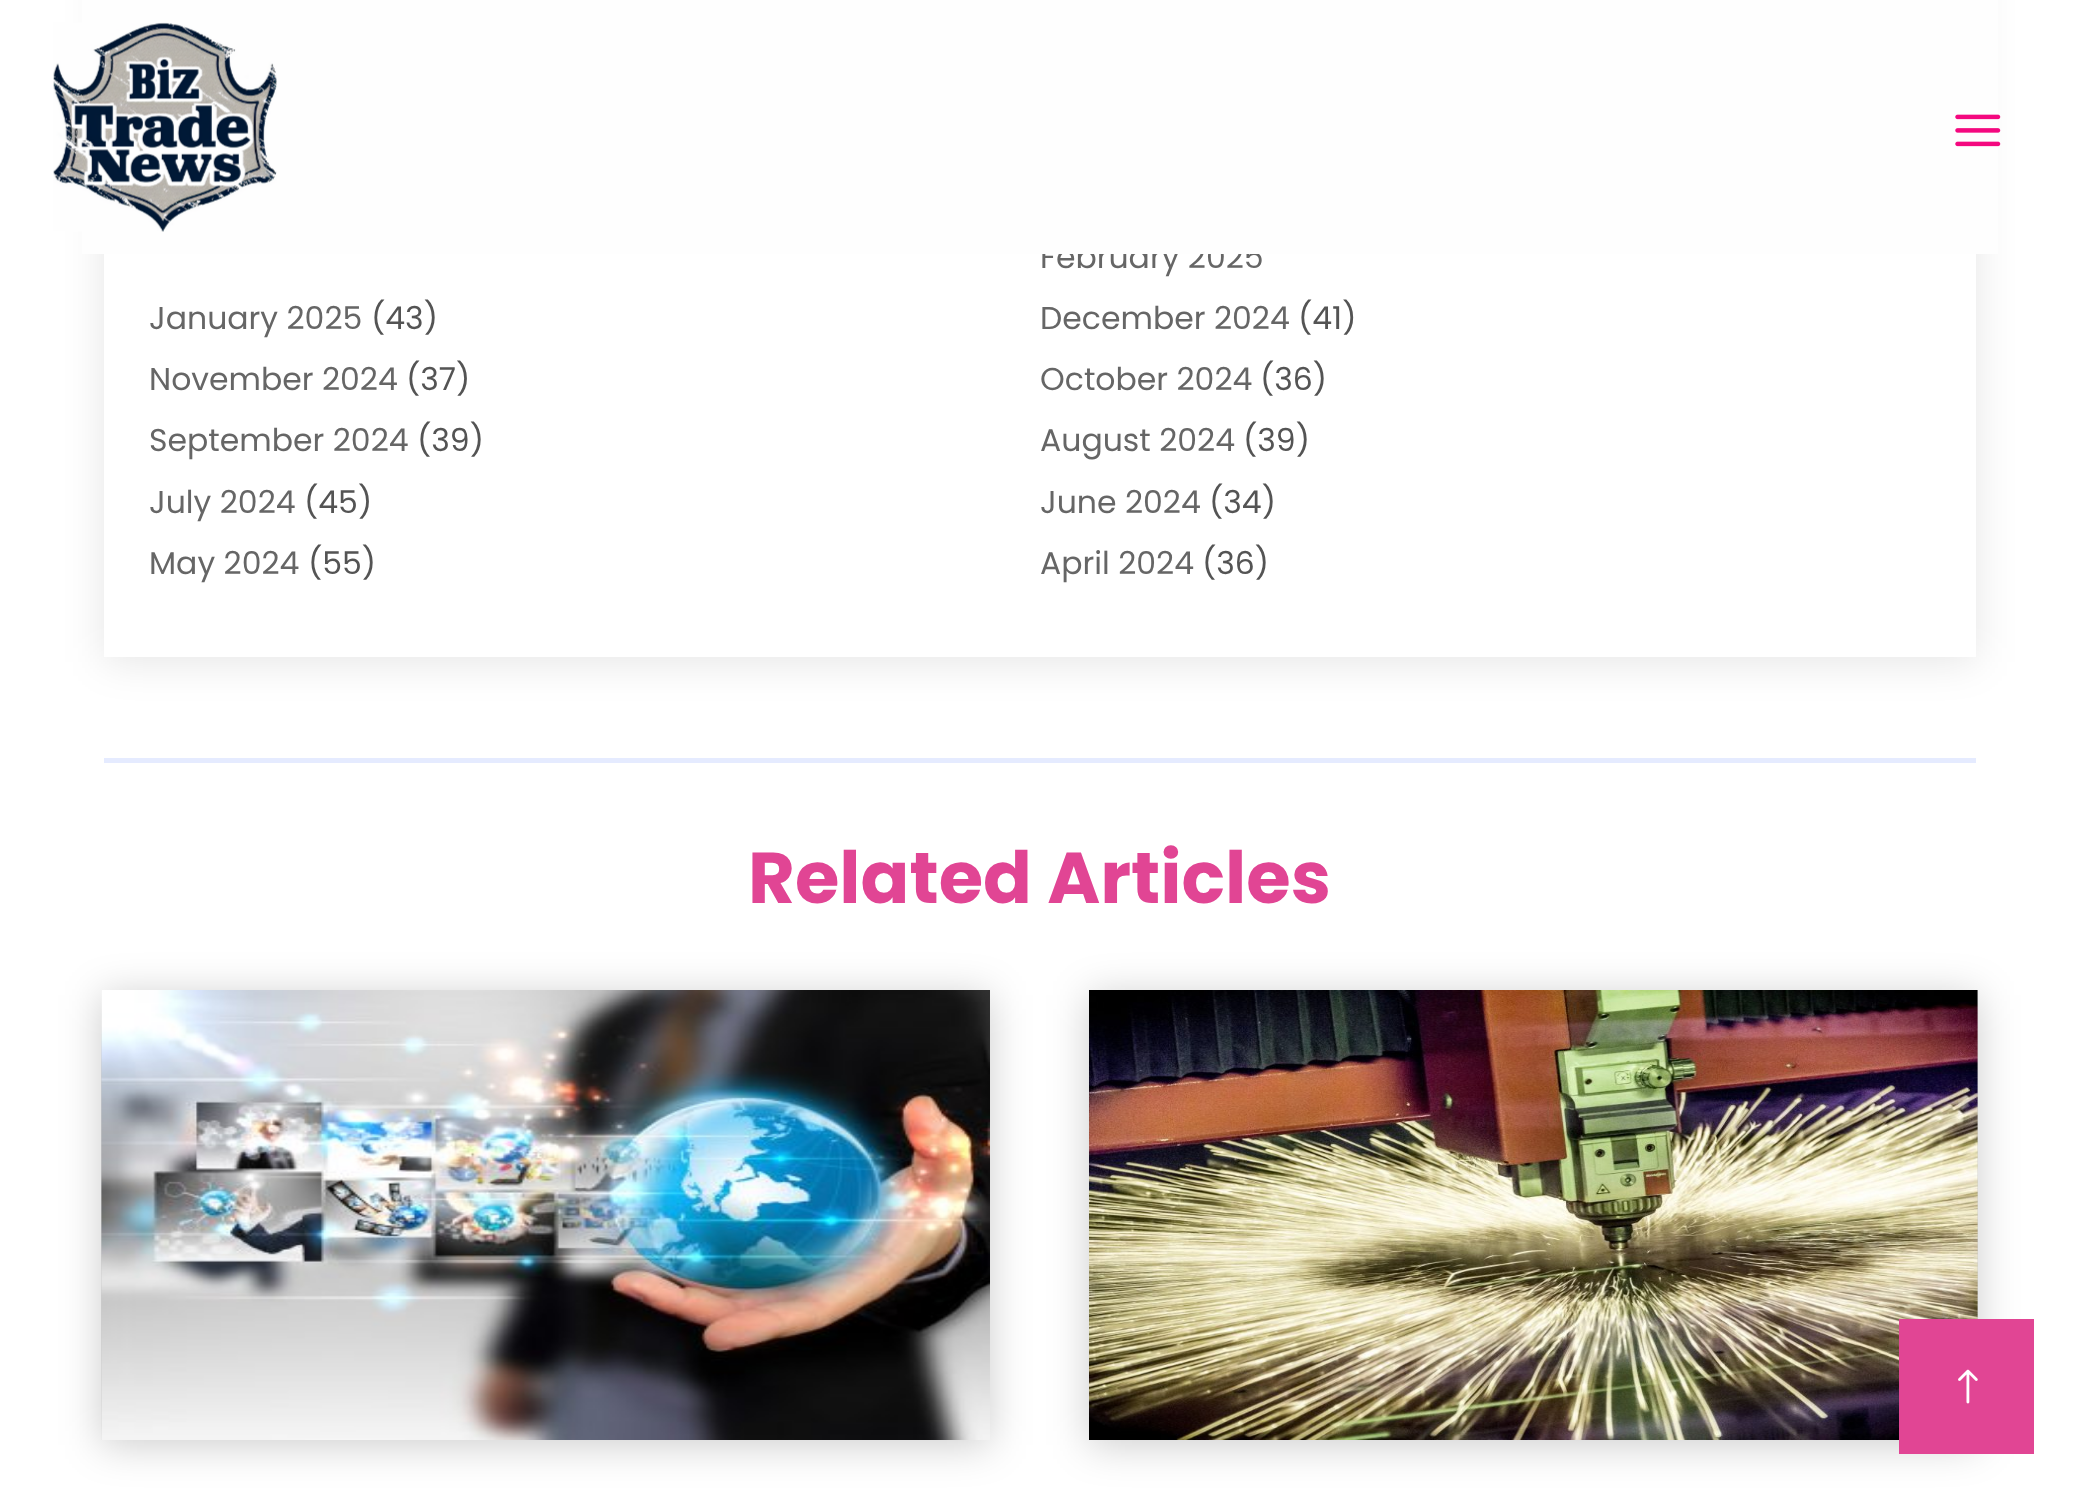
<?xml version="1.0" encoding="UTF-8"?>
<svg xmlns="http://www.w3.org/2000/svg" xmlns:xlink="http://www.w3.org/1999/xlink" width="2078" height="1498">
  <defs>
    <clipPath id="clip1"><rect x="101" y="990" width="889" height="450" /></clipPath>
    <clipPath id="clip2"><rect x="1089" y="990" width="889" height="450" /></clipPath>
  </defs>
  <rect width="100%" height="100%" fill="#ffffff" />
  <rect x="104" y="-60" width="1872" height="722" fill="#000000" fill-opacity="0.1" filter="blur(20px)" />
  <rect x="104" y="254" width="1872" height="403" fill="#ffffff" />
  <rect x="104" y="758" width="1872" height="5" fill="#e5ebff" />
  <rect x="101" y="995" width="889" height="450" fill="#000000" fill-opacity="0.2" filter="blur(20px)" />
  <g clip-path="url(#clip1)">
    <rect x="101" y="995" width="889" height="450" fill="#000000" fill-opacity="0.2" filter="blur(20px)" />
  </g>
  <image x="101" y="990" width="889" height="450" xlink:href="image3.png" />
  <rect x="1089" y="995" width="889" height="450" fill="#000000" fill-opacity="0.2" filter="blur(20px)" />
  <g clip-path="url(#clip2)">
    <rect x="1089" y="995" width="889" height="450" fill="#000000" fill-opacity="0.2" filter="blur(20px)" />
  </g>
  <image x="1089" y="990" width="889" height="450" xlink:href="image4.png" />
  <rect x="1899" y="1319" width="135" height="135" fill="#e14594" />
  <image x="1958" y="1369" width="20" height="35" xlink:href="image5.png" />
  <text x="1040" y="268" style="font-family: Poppins; font-size: 31.5px; fill: #666666">February 2025</text>
  <rect x="82" width="1916" height="254" fill="#fefefe" />
  <image x="1955" y="114" width="46" height="33" xlink:href="image2.png" />
  <image x="53" y="22" width="224" height="210" xlink:href="image1.png" />
  <text x="149" y="329" style="font-family: Poppins; font-size: 31.5px; fill: #666666">January 2025</text>
  <text x="371" y="329" style="font-family: Poppins; font-size: 31.5px; fill: #545454">(43)</text>
  <text x="1040" y="329" style="font-family: Poppins; font-size: 31.5px; fill: #666666">December 2024</text>
  <text x="1298" y="329" style="font-family: Poppins; font-size: 31.5px; fill: #545454">(41)</text>
  <text x="149" y="390" style="font-family: Poppins; font-size: 31.5px; fill: #666666">November 2024</text>
  <text x="406" y="390" style="font-family: Poppins; font-size: 31.5px; fill: #545454">(37)</text>
  <text x="1040" y="390" style="font-family: Poppins; font-size: 31.5px; fill: #666666">October 2024</text>
  <text x="1260" y="390" style="font-family: Poppins; font-size: 31.5px; fill: #545454">(36)</text>
  <text x="149" y="451" style="font-family: Poppins; font-size: 31.5px; fill: #666666">September 2024</text>
  <text x="417" y="451" style="font-family: Poppins; font-size: 31.5px; fill: #545454">(39)</text>
  <text x="1040" y="451" style="font-family: Poppins; font-size: 31.5px; fill: #666666">August 2024</text>
  <text x="1243" y="451" style="font-family: Poppins; font-size: 31.5px; fill: #545454">(39)</text>
  <text x="149" y="513" style="font-family: Poppins; font-size: 31.5px; fill: #666666">July 2024</text>
  <text x="304" y="513" style="font-family: Poppins; font-size: 31.5px; fill: #545454">(45)</text>
  <text x="1040" y="513" style="font-family: Poppins; font-size: 31.5px; fill: #666666">June 2024</text>
  <text x="1209" y="513" style="font-family: Poppins; font-size: 31.5px; fill: #545454">(34)</text>
  <text x="149" y="574" style="font-family: Poppins; font-size: 31.5px; fill: #666666">May 2024</text>
  <text x="308" y="574" style="font-family: Poppins; font-size: 31.5px; fill: #545454">(55)</text>
  <text x="1040" y="574" style="font-family: Poppins; font-size: 31.5px; fill: #666666">April 2024</text>
  <text x="1202" y="574" style="font-family: Poppins; font-size: 31.5px; fill: #545454">(36)</text>
  <text x="748" y="903" style="font-family: Poppins; font-size: 72px; font-weight: bold; fill: #e14594">Related Articles</text>
</svg>
